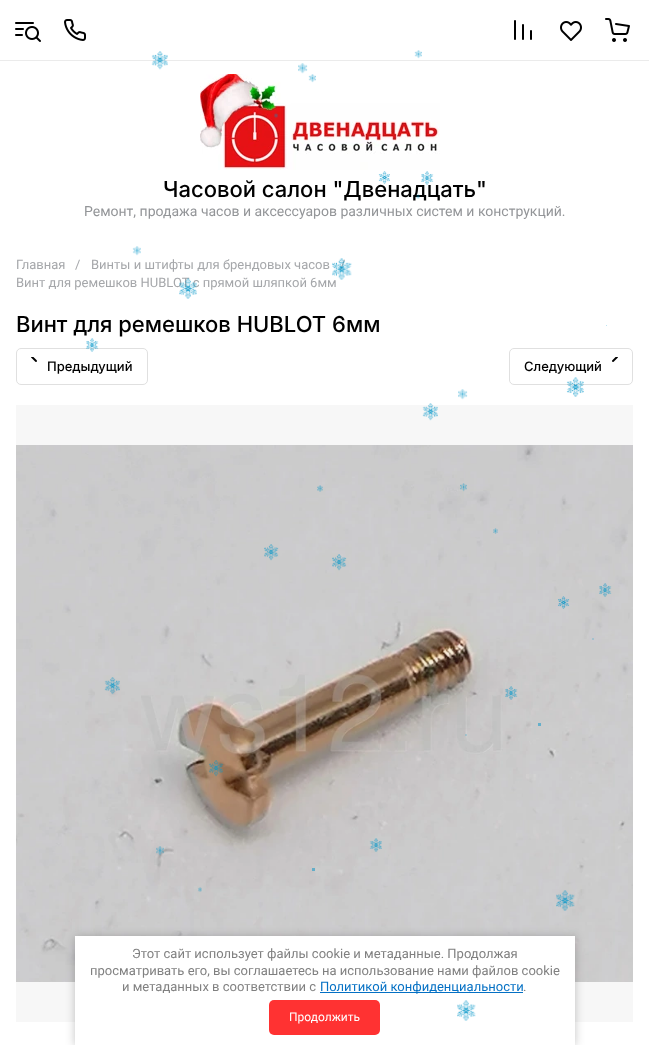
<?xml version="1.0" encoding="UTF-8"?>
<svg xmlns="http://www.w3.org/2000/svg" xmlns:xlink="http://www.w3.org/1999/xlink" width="649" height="1045">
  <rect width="100%" height="100%" fill="#ffffff" />
  <rect y="60" width="649" height="1" fill="#ebebeb" />
  <image x="151" y="51" width="17" height="19" xlink:href="image1.png" />
  <image x="298" y="63" width="10" height="11" xlink:href="image2.png" />
  <image x="414" y="50" width="8" height="9" xlink:href="image3.png" />
  <image x="200" y="74" width="240" height="96" xlink:href="image12.png" />
  <image x="308" y="74" width="8" height="9" xlink:href="image3.png" />
  <image x="274" y="113" width="4" height="5" xlink:href="image4.png" />
  <image x="15" y="22" width="26" height="20" xlink:href="image7.png" />
  <image x="64" y="19" width="22" height="22" xlink:href="image8.png" />
  <image x="514" y="20" width="18" height="20" xlink:href="image9.png" />
  <image x="560" y="21" width="22" height="20" xlink:href="image10.png" />
  <image x="605" y="18" width="25" height="24" xlink:href="image11.png" />
  <rect x="16.5" y="348.5" width="131" height="36" rx="4.5" fill="none" stroke="#e0e0e0" />
  <image x="31" y="357" width="6" height="5" xlink:href="image13.png" />
  <rect x="509.5" y="348.5" width="123" height="36" rx="4.5" fill="none" stroke="#e0e0e0" />
  <image x="612" y="357" width="6" height="5" xlink:href="image14.png" />
  <image x="16" y="445" width="617" height="537" xlink:href="image15.png" />
  <rect x="16" y="405" width="617" height="617" fill="#000000" fill-opacity="0.03" />
  <image x="132" y="246" width="9" height="10" xlink:href="image17.png" />
  <rect x="606" y="325" width="1" height="1" fill="#bfe5f2" />
  <image x="86" y="338" width="13" height="14" xlink:href="image20.png" />
  <image x="458" y="389" width="10" height="11" xlink:href="image2.png" />
  <image x="566" y="377" width="18" height="20" xlink:href="image21.png" />
  <image x="422" y="403" width="16" height="18" xlink:href="image22.png" />
  <image x="317" y="485" width="6" height="7" xlink:href="image23.png" />
  <image x="460" y="483" width="7" height="9" xlink:href="image24.png" />
  <image x="493" y="528" width="5" height="6" xlink:href="image25.png" />
  <image x="264" y="544" width="15" height="17" xlink:href="image26.png" />
  <image x="332" y="554" width="15" height="17" xlink:href="image27.png" />
  <image x="599" y="583" width="13" height="14" xlink:href="image28.png" />
  <image x="558" y="596" width="12" height="13" xlink:href="image29.png" />
  <rect x="592" y="638" width="2" height="2" fill="#a3c1cd" />
  <image x="104" y="677" width="16" height="18" xlink:href="image30.png" />
  <image x="505" y="686" width="13" height="14" xlink:href="image31.png" />
  <rect x="538" y="723" width="3" height="3" fill="#65afca" />
  <rect x="465" y="734" width="2" height="2" fill="#0098c9" fill-opacity="0.2" />
  <image x="209" y="760" width="15" height="17" xlink:href="image32.png" />
  <image x="156" y="846" width="8" height="10" xlink:href="image33.png" />
  <image x="369" y="838" width="13" height="14" xlink:href="image34.png" />
  <rect x="312" y="868" width="3" height="3" fill="#0294c8" fill-opacity="0.51" />
  <image x="198" y="887" width="4" height="5" xlink:href="image35.png" />
  <image x="556" y="890" width="19" height="21" xlink:href="image36.png" />
  <rect x="75" y="937" width="500" height="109" fill="#000000" fill-opacity="0.23" filter="blur(5px)" />
  <rect x="75" y="936" width="500" height="109" fill="#ffffff" />
  <rect x="320" y="992" width="203" height="1" fill="#0470c4" />
  <rect x="269" y="1000" width="111" height="35" rx="5" fill="#ff3232" />
  <image x="457" y="1000" width="19" height="21" xlink:href="image37.png" />
  <text x="163" y="197" style="font-family: Inter; font-size: 22px; font-weight: 500; fill: #000000">Часовой салон "Двенадцать"</text>
  <image x="421" y="171" width="13" height="14" xlink:href="image6.png" />
  <image x="378" y="171" width="12" height="13" xlink:href="image5.png" />
  <text x="84" y="216" style="font-family: Roboto; font-size: 14px; fill: #939598">Ремонт, продажа часов и аксессуаров различных систем и конструкций.</text>
  <text x="16" y="269" style="font-family: Roboto; font-size: 13px; fill: #a5a7aa">Главная</text>
  <text x="75" y="269" style="font-family: Roboto; font-size: 13px; fill: #a5a7aa">/</text>
  <text x="91" y="269" style="font-family: Roboto; font-size: 13px; fill: #a5a7aa">Винты и штифты для брендовых часов</text>
  <text x="340" y="269" style="font-family: Roboto; font-size: 13px; fill: #a5a7aa">/</text>
  <text x="16" y="287" style="font-family: Roboto; font-size: 13px; fill: #a5a7aa">Винт для ремешков HUBLOT с прямой шляпкой 6мм</text>
  <text x="16" y="332" style="font-family: Inter; font-size: 22px; font-weight: 500; fill: #000000">Винт для ремешков HUBLOT 6мм</text>
  <text x="47" y="371" style="font-family: Inter; font-size: 13px; font-weight: 500; fill: #000000">Предыдущий</text>
  <text x="524" y="371" style="font-family: Inter; font-size: 13px; font-weight: 500; fill: #000000">Следующий</text>
  <image x="416" y="194" width="4" height="5" xlink:href="image16.png" />
  <image x="332" y="258" width="20" height="22" xlink:href="image18.png" />
  <image x="179" y="278" width="18" height="21" xlink:href="image19.png" />
  <text x="132" y="958" style="font-family: Roboto; font-size: 13px; fill: #808080">Этот сайт использует файлы cookie и метаданные. Продолжая</text>
  <text x="90" y="975" style="font-family: Roboto; font-size: 13px; fill: #808080">просматривать его, вы соглашаетесь на использование нами файлов cookie</text>
  <text x="122" y="991" style="font-family: Roboto; font-size: 13px; fill: #808080">и метаданных в соответствии с</text>
  <text x="320" y="991" style="font-family: Roboto; font-size: 13px; fill: #0470c4">Политикой конфиденциальности</text>
  <text x="523" y="991" style="font-family: Roboto; font-size: 13px; fill: #808080">.</text>
  <text x="289" y="1021" style="font-family: Roboto; font-size: 12px; fill: #ffffff">Продолжить</text>
</svg>
